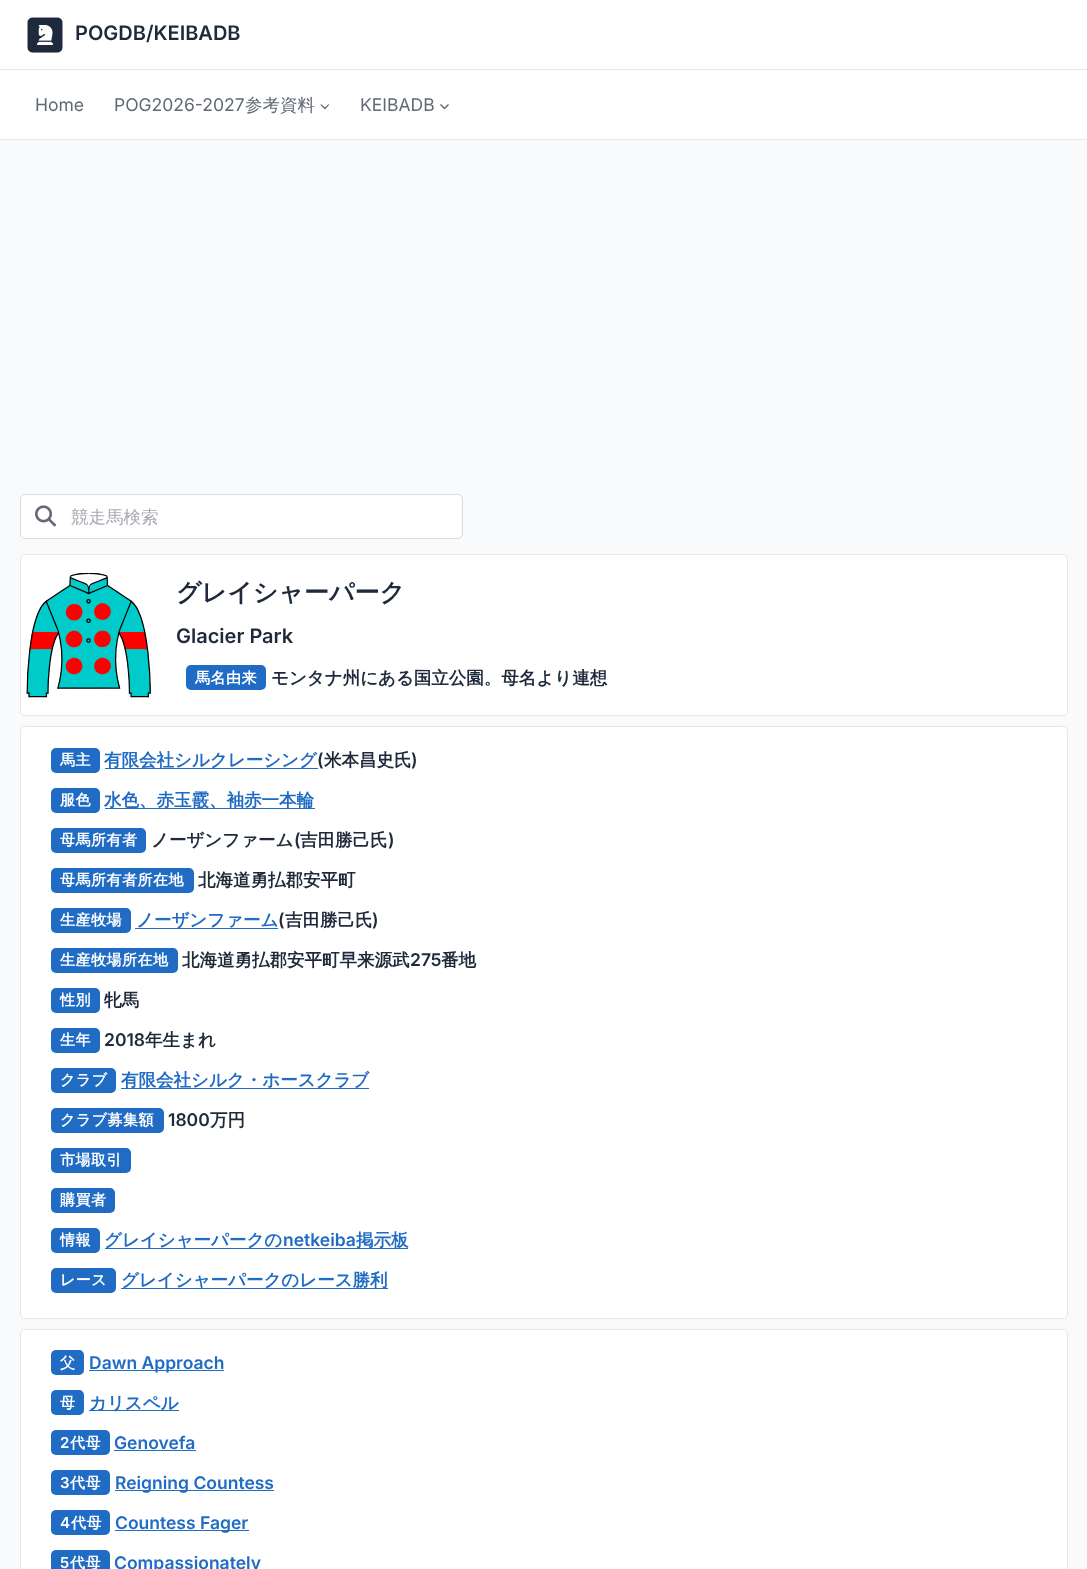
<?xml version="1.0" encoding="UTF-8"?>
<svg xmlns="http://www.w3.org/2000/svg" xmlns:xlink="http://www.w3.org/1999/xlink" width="1087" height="1569">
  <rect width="100%" height="100%" fill="#f8fafc" />
  <rect width="1087" height="69" fill="#ffffff" />
  <rect y="69" width="1087" height="1" fill="#e6e7e9" />
  <image x="27" y="17" width="36" height="36" xlink:href="image1.png" />
  <image x="36" y="25" width="18" height="20" xlink:href="image2.png" />
  <rect y="70" width="1087" height="69" fill="#ffffff" />
  <rect y="139" width="1087" height="1" fill="#e6e7e9" />
  <path d="M 329 105 l -4 4.5 v -2 l 3.5 -3.5 z m -4 4.5 l -4.5 -4.5 l 0.5 -1 l 4 3.5 z" fill="#626976" />
  <path d="M 449 105 l -4.5 4.5 v -2 l 3.5 -3.5 z" fill="#626976" />
  <path d="M 444.5 109.5 l -4.5 -4.5 l 1 -1 l 3.5 3.5 z" fill="#1e293b" fill-opacity="0.7" />
  <rect x="21" y="495" width="440" height="43" rx="4" fill="#ffffff" />
  <rect x="20.5" y="494.5" width="442" height="44" rx="4.5" fill="none" stroke="#d9dbde" />
  <image x="35" y="505" width="21" height="22" xlink:href="image3.png" />
  <rect x="20" y="554" width="1048" height="162" rx="5" fill="#ffffff" />
  <rect x="20.5" y="554.5" width="1047" height="161" rx="4.5" fill="none" stroke="#626976" stroke-opacity="0.16" />
  <image x="26" y="573" width="125" height="125" xlink:href="image4.png" />
  <rect x="186" y="665" width="80" height="25" rx="5" fill="#206bc4" />
  <rect x="20" y="726" width="1048" height="593" rx="5" fill="#ffffff" />
  <rect x="20.5" y="726.5" width="1047" height="592" rx="4.5" fill="none" stroke="#626976" stroke-opacity="0.16" />
  <rect x="51" y="748" width="49" height="25" rx="5" fill="#206bc4" />
  <rect x="105" y="768" width="213" height="1" fill="#206bc4" />
  <rect x="51" y="788" width="49" height="25" rx="5" fill="#206bc4" />
  <rect x="105" y="808" width="210" height="1" fill="#206bc4" />
  <rect x="51" y="828" width="95" height="25" rx="5" fill="#206bc4" />
  <rect x="51" y="868" width="143" height="25" rx="5" fill="#206bc4" />
  <rect x="51" y="908" width="80" height="25" rx="5" fill="#206bc4" />
  <rect x="135" y="928" width="143" height="1" fill="#206bc4" />
  <rect x="51" y="948" width="127" height="25" rx="5" fill="#206bc4" />
  <rect x="51" y="988" width="49" height="25" rx="5" fill="#206bc4" />
  <rect x="51" y="1028" width="49" height="25" rx="5" fill="#206bc4" />
  <rect x="51" y="1068" width="65" height="25" rx="5" fill="#206bc4" />
  <rect x="121" y="1088" width="248" height="1" fill="#206bc4" />
  <rect x="51" y="1108" width="113" height="25" rx="5" fill="#206bc4" />
  <rect x="51" y="1148" width="80" height="25" rx="5" fill="#206bc4" />
  <rect x="51" y="1188" width="64" height="25" rx="5" fill="#206bc4" />
  <rect x="51" y="1228" width="49" height="25" rx="5" fill="#206bc4" />
  <rect x="105" y="1248" width="303" height="1" fill="#206bc4" />
  <rect x="51" y="1268" width="65" height="25" rx="5" fill="#206bc4" />
  <rect x="121" y="1288" width="267" height="1" fill="#206bc4" />
  <rect x="20" y="1329" width="1048" height="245" rx="5" fill="#ffffff" />
  <rect x="20.5" y="1329.5" width="1047" height="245" rx="4.5" fill="none" stroke="#626976" stroke-opacity="0.16" />
  <rect x="51" y="1350" width="33" height="25" rx="5" fill="#206bc4" />
  <rect x="89" y="1370" width="135" height="1" fill="#206bc4" />
  <rect x="51" y="1390" width="33" height="25" rx="5" fill="#206bc4" />
  <rect x="89" y="1410" width="90" height="1" fill="#206bc4" />
  <rect x="51" y="1430" width="59" height="25" rx="5" fill="#206bc4" />
  <rect x="114" y="1450" width="82" height="1" fill="#206bc4" />
  <rect x="51" y="1470" width="59" height="25" rx="5" fill="#206bc4" />
  <rect x="115" y="1490" width="159" height="1" fill="#206bc4" />
  <rect x="51" y="1510" width="59" height="25" rx="5" fill="#206bc4" />
  <rect x="115" y="1530" width="134" height="1" fill="#206bc4" />
  <rect x="51" y="1550" width="59" height="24" rx="5" fill="#206bc4" />
  <text x="75" y="40" style="font-family: Inter; font-size: 20px; font-weight: 600; fill: #1e293b">POGDB/KEIBADB</text>
  <text x="35" y="111" style="font-family: Inter; font-size: 17.5px; fill: #626976">Home</text>
  <text x="114" y="111" style="font-family: Inter; font-size: 17.5px; fill: #626976">POG2026-2027</text>
  <text x="245" y="111" style="font-family: WenQuanYi Zen Hei; font-size: 17.5px; font-weight: 500; fill: #626976">参考資料</text>
  <text x="360" y="111" style="font-family: Inter; font-size: 17.5px; fill: #626976">KEIBADB</text>
  <text x="71" y="523" style="font-family: WenQuanYi Zen Hei; font-size: 17.5px; font-weight: 500; fill: #a5a9b1">競走馬検索</text>
  <text x="176" y="601" style="font-family: WenQuanYi Zen Hei; font-size: 25px; font-weight: bold; fill: #1e293b">グレイシャーパーク</text>
  <text x="176" y="643" style="font-family: Inter; font-size: 20px; font-weight: 600; fill: #1e293b">Glacier Park</text>
  <text x="195" y="683" style="font-family: WenQuanYi Zen Hei; font-size: 15px; font-weight: bold; letter-spacing: 0.5px; fill: #ffffff">馬名由来</text>
  <text x="271" y="684" style="font-family: WenQuanYi Zen Hei; font-size: 17.5px; font-weight: bold; fill: #1e293b">モンタナ州にある国立公園。母名より連想</text>
  <text x="60" y="765" style="font-family: WenQuanYi Zen Hei; font-size: 15px; font-weight: bold; letter-spacing: 0.5px; fill: #ffffff">馬主</text>
  <text x="104" y="766" style="font-family: WenQuanYi Zen Hei; font-size: 17.5px; font-weight: bold; fill: #206bc4">有限会社シルクレーシング</text>
  <text x="317" y="766" style="font-family: Inter; font-size: 17.5px; font-weight: 600; fill: #1e293b">(</text>
  <text x="324" y="766" style="font-family: WenQuanYi Zen Hei; font-size: 17.5px; font-weight: bold; fill: #1e293b">米本昌史氏</text>
  <text x="411" y="766" style="font-family: Inter; font-size: 17.5px; font-weight: 600; fill: #1e293b">)</text>
  <text x="60" y="805" style="font-family: WenQuanYi Zen Hei; font-size: 15px; font-weight: bold; letter-spacing: 0.5px; fill: #ffffff">服色</text>
  <text x="104" y="806" style="font-family: WenQuanYi Zen Hei; font-size: 17.5px; font-weight: bold; fill: #206bc4">水色、赤玉霰、袖赤一本輪</text>
  <text x="60" y="845" style="font-family: WenQuanYi Zen Hei; font-size: 15px; font-weight: bold; letter-spacing: 0.5px; fill: #ffffff">母馬所有者</text>
  <text x="151" y="846" style="font-family: WenQuanYi Zen Hei; font-size: 17.5px; font-weight: bold; fill: #1e293b">ノーザンファーム</text>
  <text x="294" y="846" style="font-family: Inter; font-size: 17.5px; font-weight: 600; fill: #1e293b">(</text>
  <text x="300" y="846" style="font-family: WenQuanYi Zen Hei; font-size: 17.5px; font-weight: bold; fill: #1e293b">吉田勝己氏</text>
  <text x="388" y="846" style="font-family: Inter; font-size: 17.5px; font-weight: 600; fill: #1e293b">)</text>
  <text x="60" y="885" style="font-family: WenQuanYi Zen Hei; font-size: 15px; font-weight: bold; letter-spacing: 0.5px; fill: #ffffff">母馬所有者所在地</text>
  <text x="198" y="886" style="font-family: WenQuanYi Zen Hei; font-size: 17.5px; font-weight: bold; fill: #1e293b">北海道勇払郡安平町</text>
  <text x="60" y="925" style="font-family: WenQuanYi Zen Hei; font-size: 15px; font-weight: bold; letter-spacing: 0.5px; fill: #ffffff">生産牧場</text>
  <text x="136" y="926" style="font-family: WenQuanYi Zen Hei; font-size: 17.5px; font-weight: bold; fill: #206bc4">ノーザンファーム</text>
  <text x="278" y="926" style="font-family: Inter; font-size: 17.5px; font-weight: 600; fill: #1e293b">(</text>
  <text x="285" y="926" style="font-family: WenQuanYi Zen Hei; font-size: 17.5px; font-weight: bold; fill: #1e293b">吉田勝己氏</text>
  <text x="372" y="926" style="font-family: Inter; font-size: 17.5px; font-weight: 600; fill: #1e293b">)</text>
  <text x="60" y="965" style="font-family: WenQuanYi Zen Hei; font-size: 15px; font-weight: bold; letter-spacing: 0.5px; fill: #ffffff">生産牧場所在地</text>
  <text x="182" y="966" style="font-family: WenQuanYi Zen Hei; font-size: 17.5px; font-weight: bold; fill: #1e293b">北海道勇払郡安平町早来源武</text>
  <text x="410" y="966" style="font-family: Inter; font-size: 17.5px; font-weight: 600; fill: #1e293b">275</text>
  <text x="441" y="966" style="font-family: WenQuanYi Zen Hei; font-size: 17.5px; font-weight: bold; fill: #1e293b">番地</text>
  <text x="60" y="1005" style="font-family: WenQuanYi Zen Hei; font-size: 15px; font-weight: bold; letter-spacing: 0.5px; fill: #ffffff">性別</text>
  <text x="104" y="1006" style="font-family: WenQuanYi Zen Hei; font-size: 17.5px; font-weight: bold; fill: #1e293b">牝馬</text>
  <text x="60" y="1045" style="font-family: WenQuanYi Zen Hei; font-size: 15px; font-weight: bold; letter-spacing: 0.5px; fill: #ffffff">生年</text>
  <text x="104" y="1046" style="font-family: Inter; font-size: 17.5px; font-weight: 600; fill: #1e293b">2018</text>
  <text x="145" y="1046" style="font-family: WenQuanYi Zen Hei; font-size: 17.5px; font-weight: bold; fill: #1e293b">年生まれ</text>
  <text x="60" y="1085" style="font-family: WenQuanYi Zen Hei; font-size: 15px; font-weight: bold; letter-spacing: 0.5px; fill: #ffffff">クラブ</text>
  <text x="121" y="1086" style="font-family: WenQuanYi Zen Hei; font-size: 17.5px; font-weight: bold; fill: #206bc4">有限会社シルク・ホースクラブ</text>
  <text x="60" y="1125" style="font-family: WenQuanYi Zen Hei; font-size: 15px; font-weight: bold; letter-spacing: 0.5px; fill: #ffffff">クラブ募集額</text>
  <text x="168" y="1126" style="font-family: Inter; font-size: 17.5px; font-weight: 600; fill: #1e293b">1800</text>
  <text x="210" y="1126" style="font-family: WenQuanYi Zen Hei; font-size: 17.5px; font-weight: bold; fill: #1e293b">万円</text>
  <text x="60" y="1165" style="font-family: WenQuanYi Zen Hei; font-size: 15px; font-weight: bold; letter-spacing: 0.5px; fill: #ffffff">市場取引</text>
  <text x="60" y="1205" style="font-family: WenQuanYi Zen Hei; font-size: 15px; font-weight: bold; letter-spacing: 0.5px; fill: #ffffff">購買者</text>
  <text x="60" y="1245" style="font-family: WenQuanYi Zen Hei; font-size: 15px; font-weight: bold; letter-spacing: 0.5px; fill: #ffffff">情報</text>
  <text x="104" y="1246" style="font-family: WenQuanYi Zen Hei; font-size: 17.5px; font-weight: bold; fill: #206bc4">グレイシャーパークの</text>
  <text x="283" y="1246" style="font-family: Inter; font-size: 17.5px; font-weight: 600; fill: #206bc4">netkeiba</text>
  <text x="356" y="1246" style="font-family: WenQuanYi Zen Hei; font-size: 17.5px; font-weight: bold; fill: #206bc4">掲示板</text>
  <text x="60" y="1285" style="font-family: WenQuanYi Zen Hei; font-size: 15px; font-weight: bold; letter-spacing: 0.5px; fill: #ffffff">レース</text>
  <text x="121" y="1286" style="font-family: WenQuanYi Zen Hei; font-size: 17.5px; font-weight: bold; fill: #206bc4">グレイシャーパークのレース勝利</text>
  <text x="60" y="1368" style="font-family: WenQuanYi Zen Hei; font-size: 15px; font-weight: bold; letter-spacing: 0.5px; fill: #ffffff">父</text>
  <text x="89" y="1369" style="font-family: Inter; font-size: 17.5px; font-weight: 600; fill: #206bc4">Dawn Approach</text>
  <text x="60" y="1408" style="font-family: WenQuanYi Zen Hei; font-size: 15px; font-weight: bold; letter-spacing: 0.5px; fill: #ffffff">母</text>
  <text x="89" y="1409" style="font-family: WenQuanYi Zen Hei; font-size: 17.5px; font-weight: bold; fill: #206bc4">カリスペル</text>
  <text x="60" y="1448" style="font-family: Inter; font-size: 15px; font-weight: 600; letter-spacing: 0.5px; fill: #ffffff">2</text>
  <text x="70" y="1448" style="font-family: WenQuanYi Zen Hei; font-size: 15px; font-weight: bold; letter-spacing: 0.5px; fill: #ffffff">代母</text>
  <text x="114" y="1449" style="font-family: Inter; font-size: 17.5px; font-weight: 600; fill: #206bc4">Genovefa</text>
  <text x="60" y="1488" style="font-family: Inter; font-size: 15px; font-weight: 600; letter-spacing: 0.5px; fill: #ffffff">3</text>
  <text x="70" y="1488" style="font-family: WenQuanYi Zen Hei; font-size: 15px; font-weight: bold; letter-spacing: 0.5px; fill: #ffffff">代母</text>
  <text x="115" y="1489" style="font-family: Inter; font-size: 17.5px; font-weight: 600; fill: #206bc4">Reigning Countess</text>
  <text x="60" y="1528" style="font-family: Inter; font-size: 15px; font-weight: 600; letter-spacing: 0.5px; fill: #ffffff">4</text>
  <text x="71" y="1528" style="font-family: WenQuanYi Zen Hei; font-size: 15px; font-weight: bold; letter-spacing: 0.5px; fill: #ffffff">代母</text>
  <text x="115" y="1529" style="font-family: Inter; font-size: 17.5px; font-weight: 600; fill: #206bc4">Countess Fager</text>
  <text x="60" y="1568" style="font-family: Inter; font-size: 15px; font-weight: 600; letter-spacing: 0.5px; fill: #ffffff">5</text>
  <text x="70" y="1568" style="font-family: WenQuanYi Zen Hei; font-size: 15px; font-weight: bold; letter-spacing: 0.5px; fill: #ffffff">代母</text>
  <text x="114" y="1569" style="font-family: Inter; font-size: 17.5px; font-weight: 600; fill: #206bc4">Compassionately</text>
</svg>
